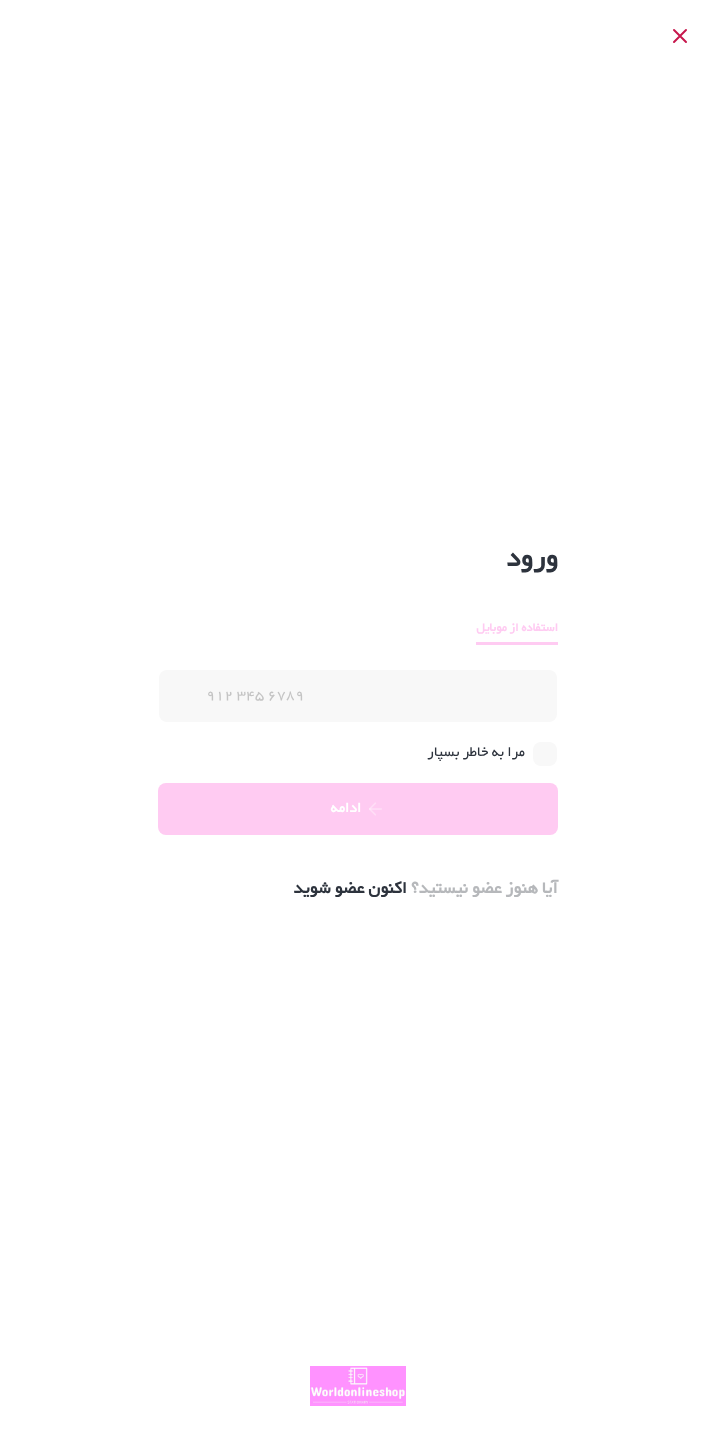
<?xml version="1.0" encoding="UTF-8"?>
<svg xmlns="http://www.w3.org/2000/svg" xmlns:xlink="http://www.w3.org/1999/xlink" width="716" height="1439">
  <rect width="100%" height="100%" fill="#ffffff" />
  <path d="M 686 30 l -12 12 m 0 -12 l 12 12" fill="none" stroke="#c7184d" stroke-width="2" stroke-linecap="round" stroke-linejoin="round" />
  <rect x="476" y="642" width="82" height="3" fill="#ffcbf2" />
  <rect x="159" y="670" width="398" height="52" rx="8" fill="#f8f8f8" />
  <rect x="533" y="742" width="24" height="24" rx="8" fill="#f8f8f8" />
  <rect x="158" y="783" width="400" height="52" rx="8" fill="#ffcbf2" />
  <image x="369" y="802" width="13" height="14" xlink:href="image1.png" />
  <image x="310" y="1366" width="96" height="40" xlink:href="image2.png" />
  <text x="558" y="566" style="font-family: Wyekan; font-size: 32px; font-weight: bold; direction: rtl; fill: #2d333d">ورود</text>
  <text x="558" y="631" style="font-family: Wyekan; font-size: 14px; font-weight: bold; direction: rtl; fill: #ffcbf2">استفاده از موبایل</text>
  <text x="206" y="699" style="font-family: Wyekan; font-size: 17px; fill: #c4c4c4">912 345 6789</text>
  <text x="525" y="756" style="font-family: Wyekan; font-size: 17px; direction: rtl; fill: #2d333d">مرا به خاطر بسپار</text>
  <text x="361" y="812" style="font-family: Wyekan; font-size: 17px; font-weight: bold; direction: rtl; fill: #ffffff">ادامه</text>
  <text x="558" y="893" style="font-family: Wyekan; font-size: 20px; font-weight: bold; direction: rtl; fill: #b6b8bb">آیا هنوز عضو نیستید؟</text>
  <text x="407" y="893" style="font-family: Wyekan; font-size: 20px; font-weight: bold; direction: rtl; fill: #2d333d">اکنون عضو شوید</text>
</svg>
